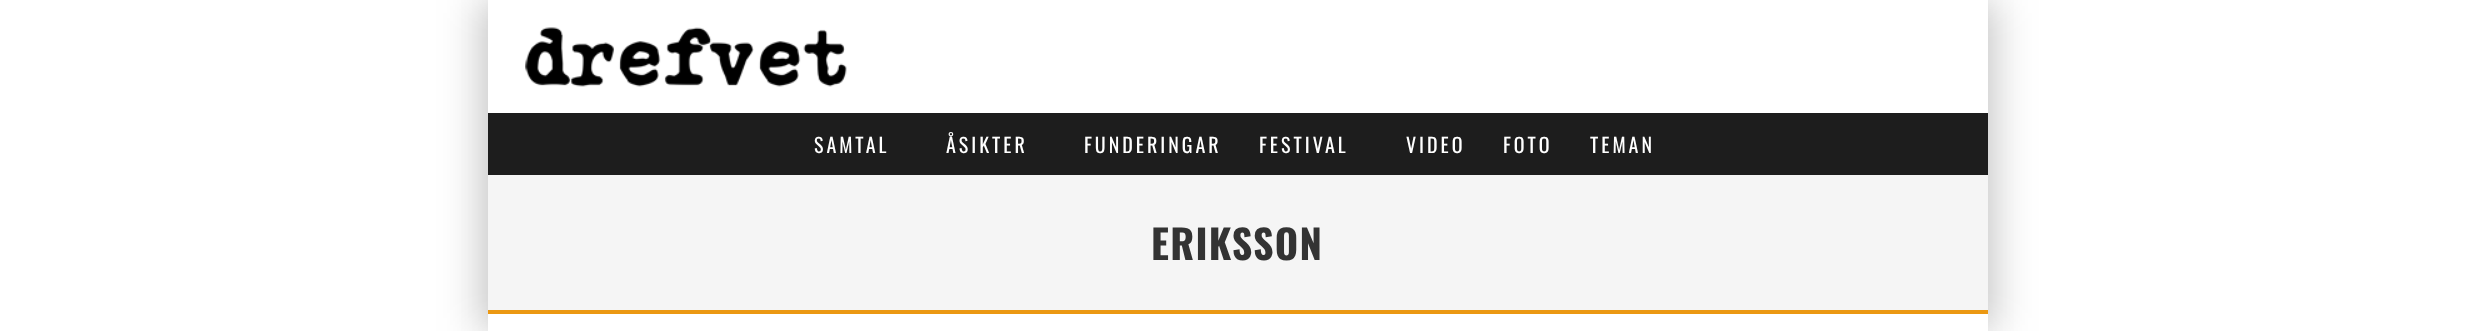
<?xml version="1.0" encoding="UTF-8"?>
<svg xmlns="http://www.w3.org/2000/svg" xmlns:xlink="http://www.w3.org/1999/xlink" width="2474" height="331">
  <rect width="100%" height="100%" fill="#ffffff" />
  <rect x="475" width="1500" height="331" fill="#000000" fill-opacity="0.15" filter="blur(19px)" />
  <rect x="500" width="1500" height="331" fill="#000000" fill-opacity="0.15" filter="blur(19px)" />
  <rect x="488" width="1500" height="113" fill="#ffffff" />
  <image x="525" y="27" width="322" height="60" xlink:href="image1.png" />
  <rect x="488" y="113" width="1500" height="62" fill="#1d1d1d" />
  <rect x="488" y="175" width="1500" height="135" fill="#f5f5f5" />
  <rect x="488" y="310" width="1500" height="4" fill="#eb9812" />
  <rect x="488" y="314" width="1500" height="17" fill="#ffffff" />
  <text x="814" y="153" style="font-family: Oswald; font-size: 20px; letter-spacing: 3px; fill: #ffffff">SAMTAL</text>
  <text x="946" y="153" style="font-family: Oswald; font-size: 20px; letter-spacing: 3px; fill: #ffffff">ÅSIKTER</text>
  <text x="1084" y="153" style="font-family: Oswald; font-size: 20px; letter-spacing: 3px; fill: #ffffff">FUNDERINGAR</text>
  <text x="1259" y="153" style="font-family: Oswald; font-size: 20px; letter-spacing: 3px; fill: #ffffff">FESTIVAL</text>
  <text x="1406" y="153" style="font-family: Oswald; font-size: 20px; letter-spacing: 3px; fill: #ffffff">VIDEO</text>
  <text x="1503" y="153" style="font-family: Oswald; font-size: 20px; letter-spacing: 3px; fill: #ffffff">FOTO</text>
  <text x="1590" y="153" style="font-family: Oswald; font-size: 20px; letter-spacing: 3px; fill: #ffffff">TEMAN</text>
  <text x="1151" y="260" style="font-family: Oswald; font-size: 40px; font-weight: bold; letter-spacing: 1.25px; fill: #333333">ERIKSSON</text>
</svg>
